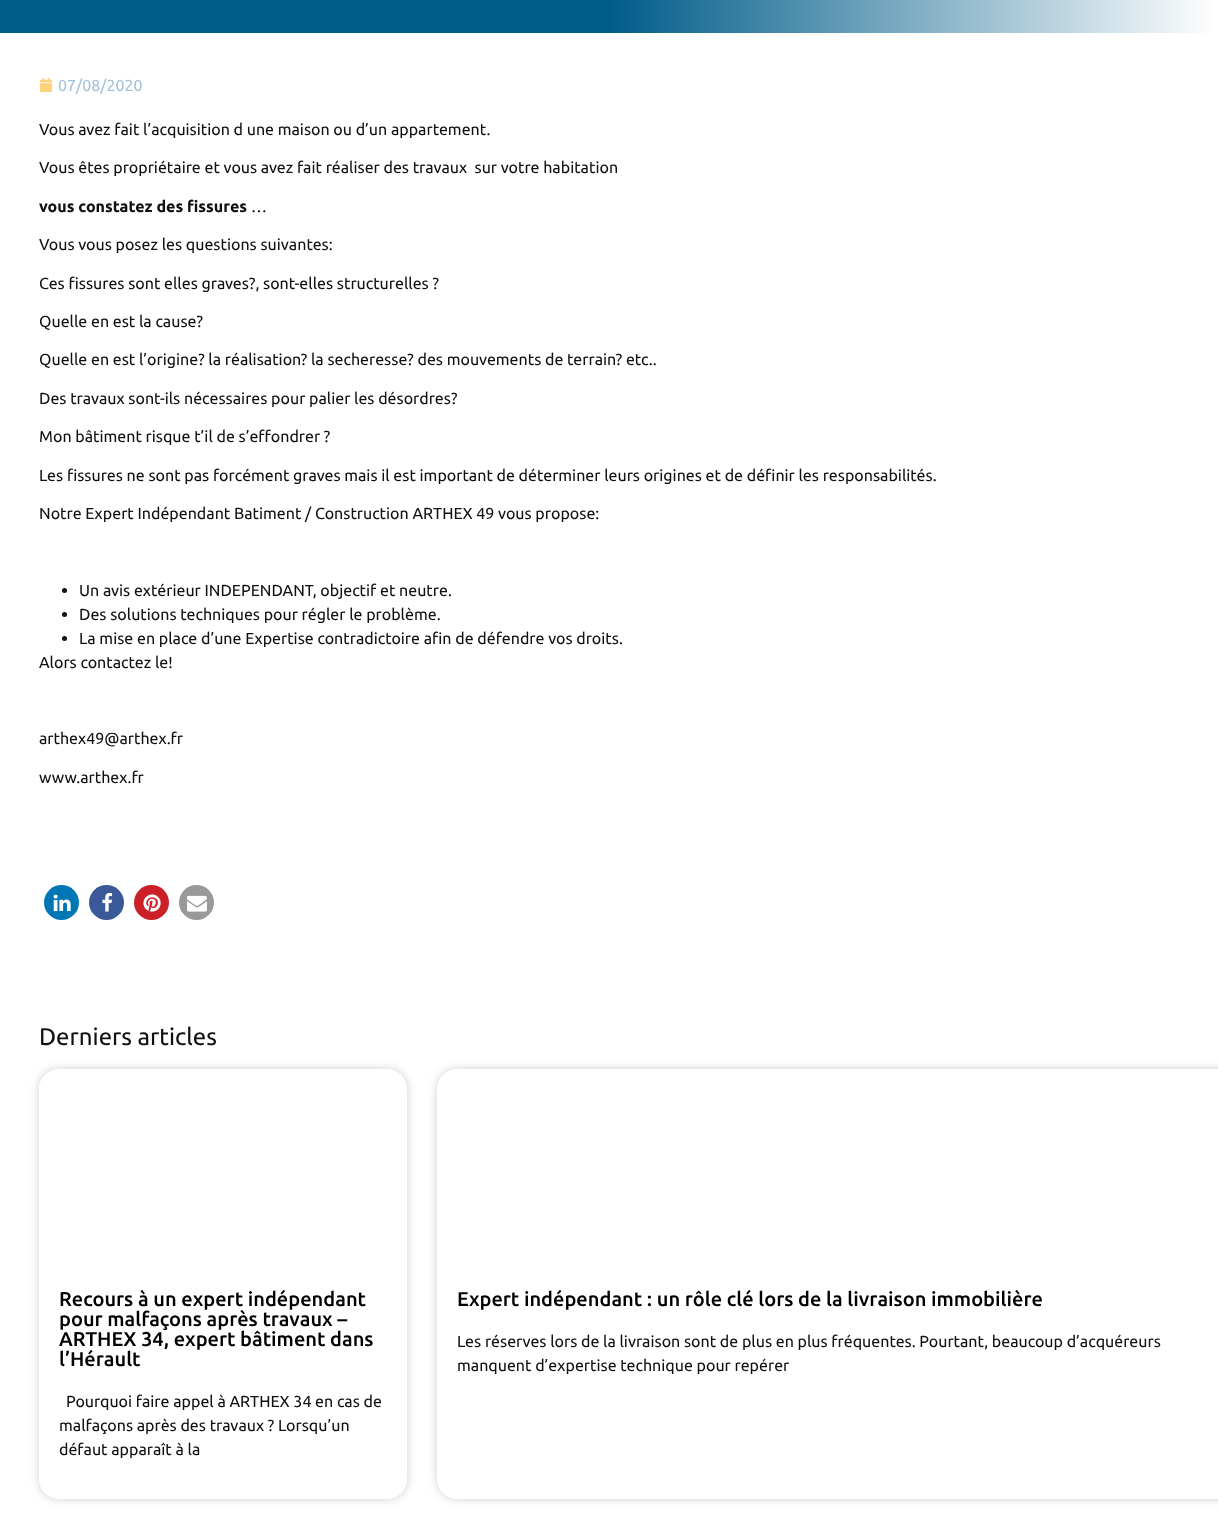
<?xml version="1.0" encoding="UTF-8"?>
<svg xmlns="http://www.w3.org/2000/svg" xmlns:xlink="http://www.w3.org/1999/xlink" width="1218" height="1533">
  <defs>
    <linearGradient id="g1" gradientUnits="userSpaceOnUse" x1="0" y1="-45" x2="1218" y2="-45"><stop offset="0.5" stop-color="#005c89" /><stop offset="1" stop-color="#ffffff" /></linearGradient>
    <clipPath id="clip1"><path d="M 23 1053 h 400 v 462 h -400 z m 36 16 h 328 c 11 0 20 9 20 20 v 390 c 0 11 -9 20 -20 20 h -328 c -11 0 -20 -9 -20 -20 v -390 c 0 -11 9 -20 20 -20 z" clip-rule="evenodd" /></clipPath>
    <clipPath id="clip2"><path d="M 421 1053 h 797 v 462 h -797 z m 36 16 h 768 c 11 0 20 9 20 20 v 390 c 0 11 -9 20 -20 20 h -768 c -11 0 -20 -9 -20 -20 v -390 c 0 -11 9 -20 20 -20 z" clip-rule="evenodd" /></clipPath>
  </defs>
  <rect width="100%" height="100%" fill="#ffffff" />
  <rect width="1212" height="33" fill="url(#g1)" />
  <image x="39" y="78" width="14" height="14" xlink:href="image1.png" />
  <circle cx="64.5" cy="590.5" r="2.5" fill="#111111" />
  <circle cx="64.5" cy="614.5" r="2.5" fill="#111111" />
  <circle cx="64.5" cy="638.5" r="2.5" fill="#111111" />
  <circle cx="61.5" cy="902.5" r="17.5" fill="#0077b5" />
  <image x="53" y="894" width="18" height="18" xlink:href="image2.png" />
  <circle cx="106.5" cy="902.5" r="17.5" fill="#3b5998" />
  <image x="102" y="892" width="11" height="20" xlink:href="image3.png" />
  <circle cx="151.5" cy="902.5" r="17.5" fill="#cb2027" />
  <image x="143" y="894" width="18" height="18" xlink:href="image4.png" />
  <circle cx="196.5" cy="902.5" r="17.5" fill="#999999" />
  <image x="186" y="895" width="21" height="17" xlink:href="image5.png" />
  <g clip-path="url(#clip1)">
    <rect x="39" y="1069" width="368" height="430" rx="20" fill="#a2a2a2" fill-opacity="0.5" filter="blur(5px)" />
  </g>
  <g clip-path="url(#clip2)">
    <rect x="437" y="1069" width="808" height="430" rx="20" fill="#a2a2a2" fill-opacity="0.5" filter="blur(5px)" />
  </g>
  <text x="58" y="91" style="font-family: Ubuntu; font-size: 16px; fill: #a4c2db">07/08/2020</text>
  <text x="39" y="135" style="font-family: Ubuntu; font-size: 16px; fill: #111111">Vous avez fait l’acquisition d une maison ou d’un appartement.</text>
  <text x="39" y="173" style="font-family: Ubuntu; font-size: 16px; fill: #111111" xml:space="preserve">Vous êtes propriétaire et vous avez fait réaliser des travaux  sur votre habitation</text>
  <text x="39" y="212" style="font-family: Ubuntu; font-size: 16px; font-weight: bold; fill: #111111">vous constatez des fissures</text>
  <text x="251" y="212" style="font-family: Ubuntu; font-size: 16px; fill: #111111">…</text>
  <text x="39" y="250" style="font-family: Ubuntu; font-size: 16px; fill: #111111">Vous vous posez les questions suivantes:</text>
  <text x="39" y="289" style="font-family: Ubuntu; font-size: 16px; fill: #111111">Ces fissures sont elles graves?, sont-elles structurelles ?</text>
  <text x="39" y="327" style="font-family: Ubuntu; font-size: 16px; fill: #111111">Quelle en est la cause?</text>
  <text x="39" y="365" style="font-family: Ubuntu; font-size: 16px; fill: #111111">Quelle en est l’origine? la réalisation? la secheresse? des mouvements de terrain? etc..</text>
  <text x="39" y="404" style="font-family: Ubuntu; font-size: 16px; fill: #111111">Des travaux sont-ils nécessaires pour palier les désordres?</text>
  <text x="39" y="442" style="font-family: Ubuntu; font-size: 16px; fill: #111111">Mon bâtiment risque t’il de s’effondrer ?</text>
  <text x="39" y="481" style="font-family: Ubuntu; font-size: 16px; fill: #111111">Les fissures ne sont pas forcément graves mais il est important de déterminer leurs origines et de définir les responsabilités.</text>
  <text x="39" y="519" style="font-family: Ubuntu; font-size: 16px; fill: #111111">Notre Expert Indépendant Batiment / Construction ARTHEX 49 vous propose:</text>
  <text x="79" y="596" style="font-family: Ubuntu; font-size: 16px; fill: #111111">Un avis extérieur INDEPENDANT, objectif et neutre.</text>
  <text x="79" y="620" style="font-family: Ubuntu; font-size: 16px; fill: #111111">Des solutions techniques pour régler le problème.</text>
  <text x="79" y="644" style="font-family: Ubuntu; font-size: 16px; fill: #111111">La mise en place d’une Expertise contradictoire afin de défendre vos droits.</text>
  <text x="39" y="668" style="font-family: Ubuntu; font-size: 16px; fill: #111111">Alors contactez le!</text>
  <text x="39" y="744" style="font-family: Ubuntu; font-size: 16px; fill: #111111">arthex49@arthex.fr</text>
  <text x="39" y="783" style="font-family: Ubuntu; font-size: 16px; fill: #111111">www.arthex.fr</text>
  <text x="39" y="1045" style="font-family: Ubuntu; font-size: 24px; fill: #111111">Derniers articles</text>
  <text x="59" y="1306" style="font-family: Ubuntu; font-size: 20px; font-weight: 500; fill: #000000">Recours à un expert indépendant</text>
  <text x="59" y="1326" style="font-family: Ubuntu; font-size: 20px; font-weight: 500; fill: #000000">pour malfaçons après travaux –</text>
  <text x="59" y="1346" style="font-family: Ubuntu; font-size: 20px; font-weight: 500; fill: #000000">ARTHEX 34, expert bâtiment dans</text>
  <text x="59" y="1366" style="font-family: Ubuntu; font-size: 20px; font-weight: 500; fill: #000000">l’Hérault</text>
  <text x="66" y="1407" style="font-family: Ubuntu; font-size: 16px; fill: #111111">Pourquoi faire appel à ARTHEX 34 en cas de</text>
  <text x="59" y="1431" style="font-family: Ubuntu; font-size: 16px; fill: #111111">malfaçons après des travaux ? Lorsqu’un</text>
  <text x="59" y="1455" style="font-family: Ubuntu; font-size: 16px; fill: #111111">défaut apparaît à la</text>
  <text x="457" y="1306" style="font-family: Ubuntu; font-size: 20px; font-weight: 500; fill: #000000">Expert indépendant : un rôle clé lors de la livraison immobilière</text>
  <text x="457" y="1347" style="font-family: Ubuntu; font-size: 16px; fill: #111111">Les réserves lors de la livraison sont de plus en plus fréquentes. Pourtant, beaucoup d’acquéreurs</text>
  <text x="457" y="1371" style="font-family: Ubuntu; font-size: 16px; fill: #111111">manquent d’expertise technique pour repérer</text>
</svg>
